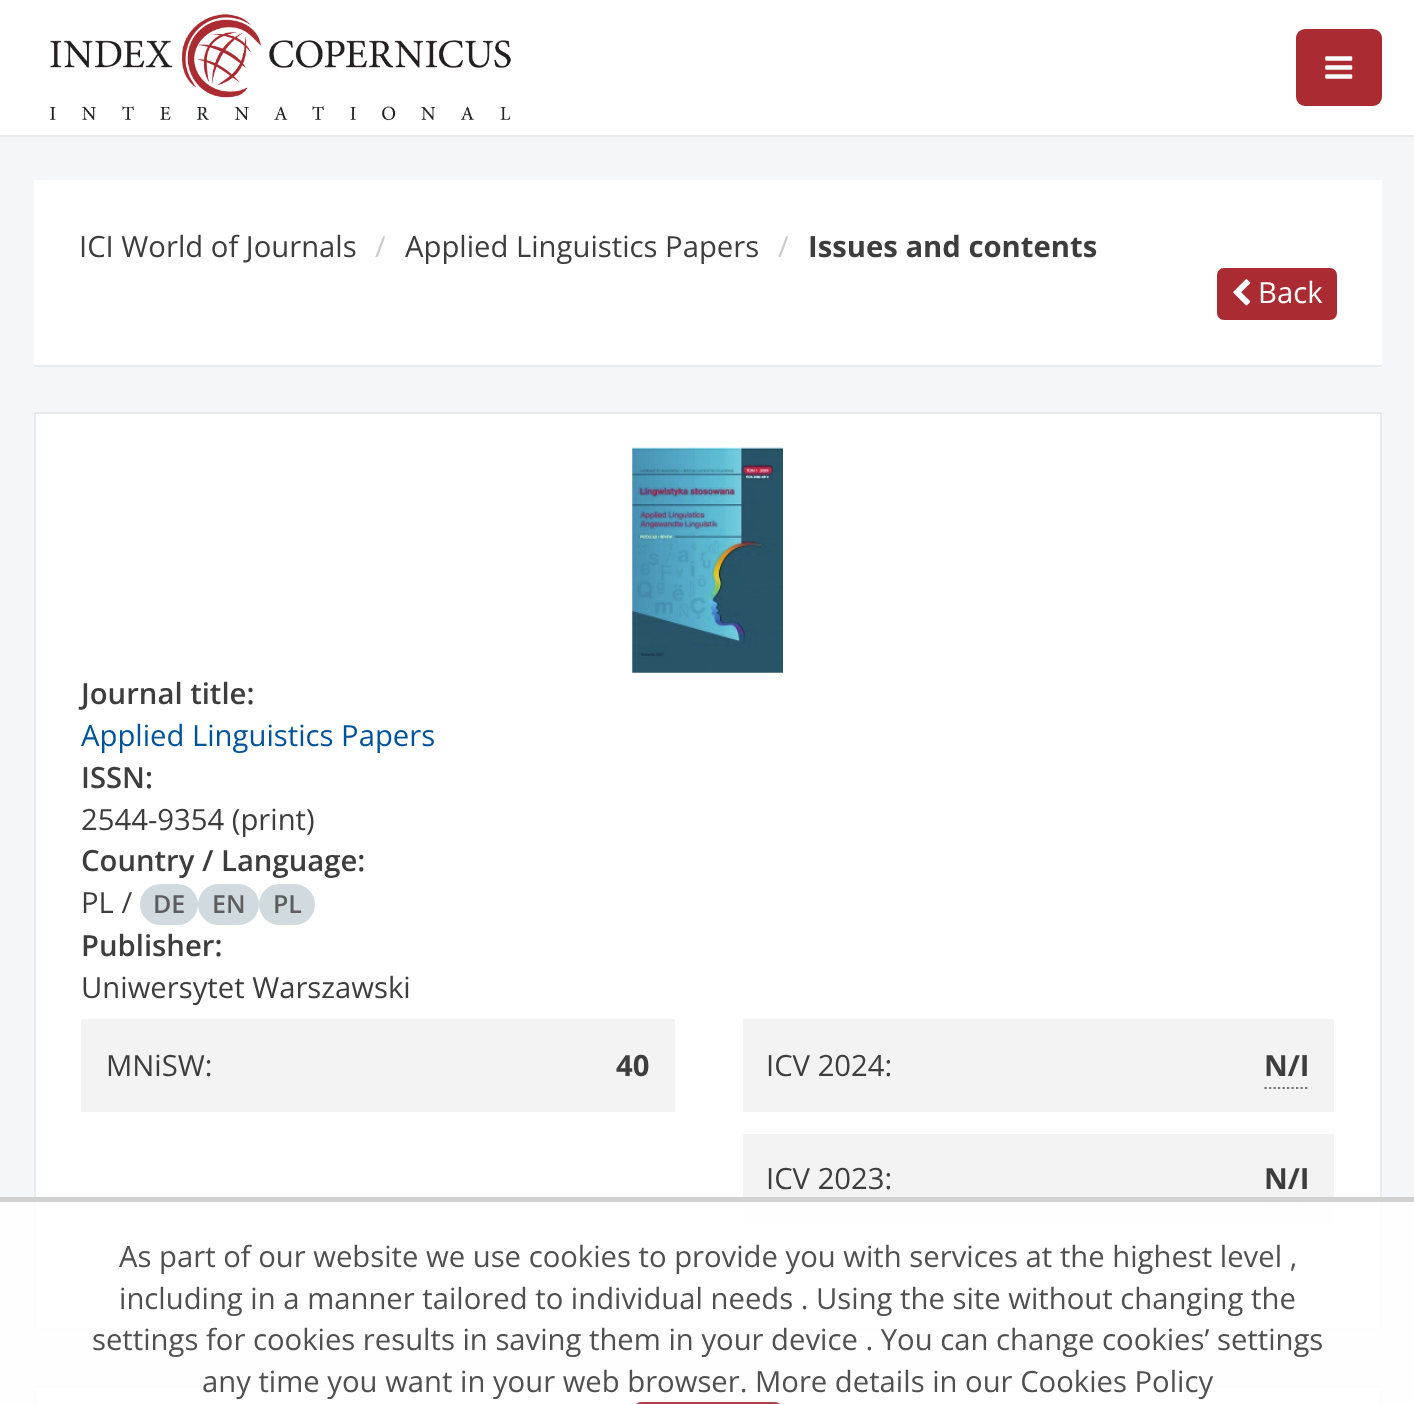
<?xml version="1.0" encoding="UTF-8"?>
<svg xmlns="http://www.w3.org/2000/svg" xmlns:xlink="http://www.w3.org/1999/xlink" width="1414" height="1404">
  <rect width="100%" height="100%" fill="#f4f6fa" />
  <rect width="1414" height="135" fill="#ffffff" />
  <rect y="135" width="1414" height="2" fill="#e7eaec" />
  <image x="50" y="14" width="461" height="107" xlink:href="image1.png" />
  <rect x="1296" y="29" width="86" height="77" rx="9" fill="#aa2b31" />
  <image x="1325" y="56" width="28" height="23" xlink:href="image2.png" />
  <rect x="34" y="180" width="1348" height="185" fill="#ffffff" />
  <rect x="34" y="365" width="1348" height="2" fill="#e7eaec" />
  <rect x="1218" y="269" width="118" height="50" rx="6" fill="#aa2b31" stroke="#aa2b31" stroke-width="2" />
  <image x="1233" y="279" width="18" height="27" xlink:href="image3.png" />
  <rect x="35" y="413" width="1346" height="916" fill="#ffffff" stroke="#e7eaec" stroke-width="2" />
  <image x="632" y="447" width="151" height="226" xlink:href="image4.png" />
  <rect x="140" y="884" width="58" height="41" rx="20.5" fill="#d1dade" />
  <rect x="198" y="884" width="61" height="41" rx="20.5" fill="#d1dade" />
  <rect x="259" y="884" width="56" height="41" rx="20.5" fill="#d1dade" />
  <rect x="81" y="1019" width="594" height="93" fill="#f3f3f4" />
  <rect x="743" y="1019" width="591" height="93" fill="#f3f3f4" />
  <path d="M 1264.5 1088 h 45" fill="none" stroke="#777777" stroke-width="2.2" stroke-dasharray="2.25 2.25" />
  <rect x="743" y="1134" width="591" height="90" fill="#f3f3f4" />
  <path d="M 1264.5 1200.5 h 45" fill="none" stroke="#777777" stroke-width="2.2" stroke-dasharray="2.25 2.25" />
  <image x="407" y="1258" width="9" height="15" xlink:href="image5.png" />
  <rect x="35" y="1387" width="1346" height="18" fill="#ffffff" stroke="#e7eaec" stroke-width="2" />
  <rect y="1197" width="1414" height="207" fill="#ffffff" fill-opacity="0.9" />
  <rect y="1197" width="1414" height="5" fill="#cccccc" fill-opacity="0.9" />
  <rect x="635" y="1402" width="146" height="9" rx="7" fill="#b34046" />
  <text x="79" y="257" style="font-family: Open Sans; font-size: 29.25px; fill: #3d3d3d">ICI World of Journals</text>
  <text x="375" y="257" style="font-family: Open Sans; font-size: 29.25px; fill: #cccccc">/</text>
  <text x="405" y="257" style="font-family: Open Sans; font-size: 29.25px; fill: #3d3d3d">Applied Linguistics Papers</text>
  <text x="778" y="257" style="font-family: Open Sans; font-size: 29.25px; fill: #cccccc">/</text>
  <text x="808" y="257" style="font-family: Open Sans; font-size: 29.25px; font-weight: bold; fill: #3d3d3d">Issues and contents</text>
  <text x="1258" y="303" style="font-family: Open Sans; font-size: 29.25px; fill: #ffffff">Back</text>
  <text x="81" y="704" style="font-family: Open Sans; font-size: 29.25px; font-weight: 600; fill: #3d3d3d">Journal title:</text>
  <text x="81" y="746" style="font-family: Open Sans; font-size: 29.25px; fill: #00539b">Applied Linguistics Papers</text>
  <text x="81" y="788" style="font-family: Open Sans; font-size: 29.25px; font-weight: 600; fill: #3d3d3d">ISSN:</text>
  <text x="81" y="830" style="font-family: Open Sans; font-size: 29.25px; fill: #3d3d3d">2544-9354 (print)</text>
  <text x="81" y="871" style="font-family: Open Sans; font-size: 29.25px; font-weight: 600; fill: #3d3d3d">Country / Language:</text>
  <text x="81" y="913" style="font-family: Open Sans; font-size: 29.25px; fill: #3d3d3d">PL /</text>
  <text x="153" y="913" style="font-family: Open Sans; font-size: 25px; font-weight: 600; fill: #5e5e5e">DE</text>
  <text x="212" y="913" style="font-family: Open Sans; font-size: 25px; font-weight: 600; fill: #5e5e5e">EN</text>
  <text x="273" y="913" style="font-family: Open Sans; font-size: 25px; font-weight: 600; fill: #5e5e5e">PL</text>
  <text x="81" y="956" style="font-family: Open Sans; font-size: 29.25px; font-weight: 600; fill: #3d3d3d">Publisher:</text>
  <text x="81" y="998" style="font-family: Open Sans; font-size: 29.25px; fill: #3d3d3d">Uniwersytet Warszawski</text>
  <text x="106" y="1076" style="font-family: Open Sans; font-size: 29.25px; fill: #3d3d3d">MNiSW:</text>
  <text x="616" y="1076" style="font-family: Open Sans; font-size: 29.25px; font-weight: bold; fill: #3d3d3d">40</text>
  <text x="766" y="1076" style="font-family: Open Sans; font-size: 29.25px; fill: #3d3d3d">ICV 2024:</text>
  <text x="1264" y="1076" style="font-family: Open Sans; font-size: 29.25px; font-weight: bold; fill: #3d3d3d">N/I</text>
  <text x="766" y="1189" style="font-family: Open Sans; font-size: 29.25px; fill: #3d3d3d">ICV 2023:</text>
  <text x="1264" y="1189" style="font-family: Open Sans; font-size: 29.25px; font-weight: bold; fill: #3d3d3d">N/I</text>
  <text x="119" y="1267" style="font-family: Open Sans; font-size: 29.25px; fill: #505050">As part of our website we use cookies to provide you with services at the highest level ,</text>
  <text x="119" y="1309" style="font-family: Open Sans; font-size: 29.25px; fill: #505050">including in a manner tailored to individual needs . Using the site without changing the</text>
  <text x="92" y="1350" style="font-family: Open Sans; font-size: 29.25px; fill: #505050">settings for cookies results in saving them in your device . You can change cookies’ settings</text>
  <text x="202" y="1392" style="font-family: Open Sans; font-size: 29.25px; fill: #505050">any time you want in your web browser. More details in our Cookies Policy</text>
</svg>
